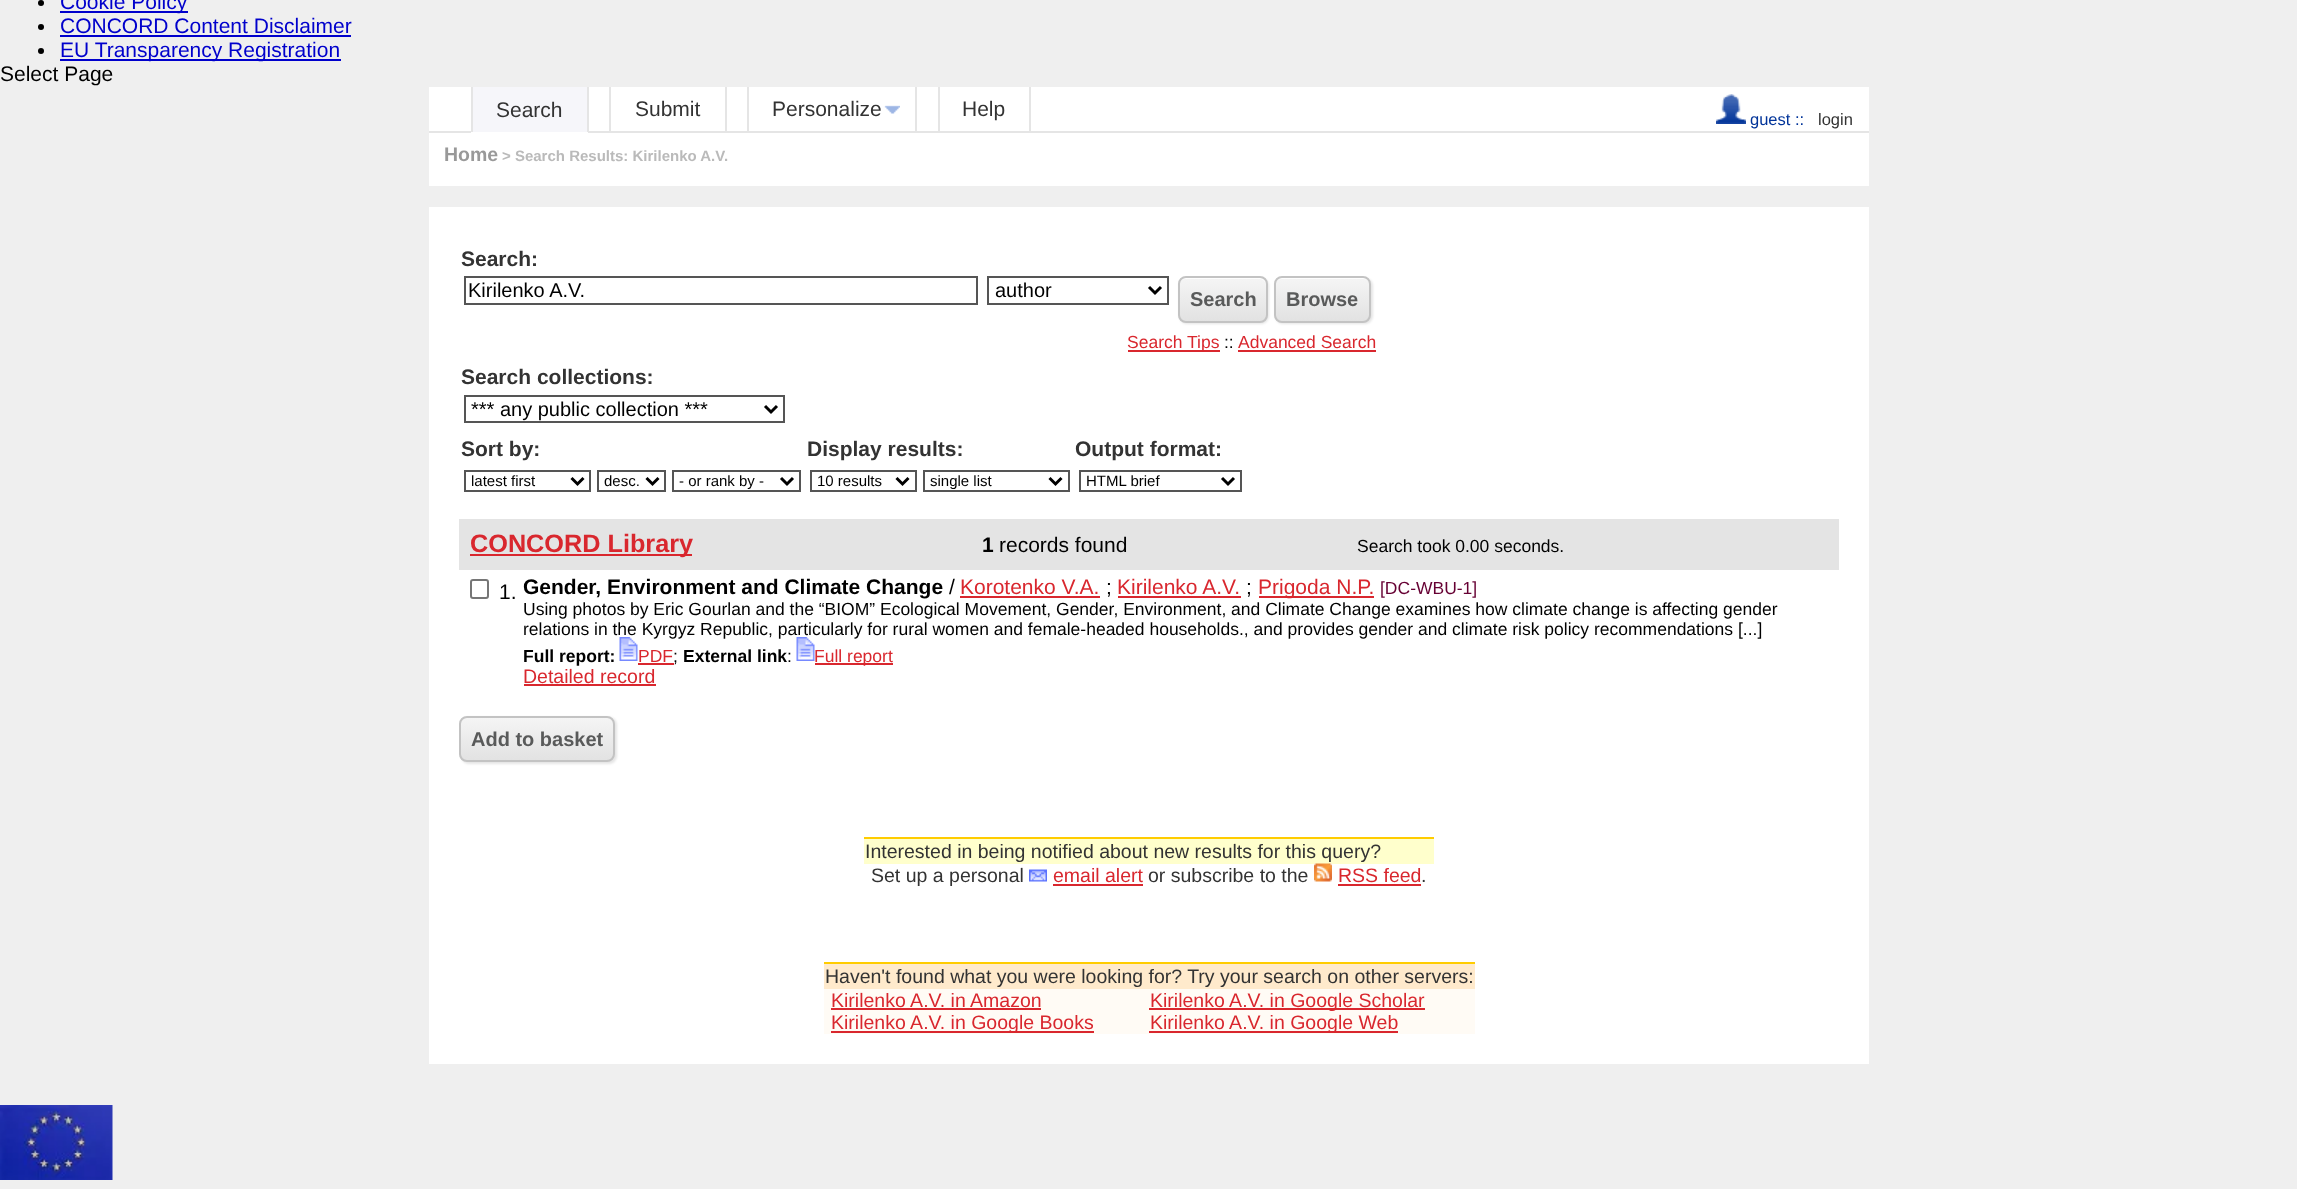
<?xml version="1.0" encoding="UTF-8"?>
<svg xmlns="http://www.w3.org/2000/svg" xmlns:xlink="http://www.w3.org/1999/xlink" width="2297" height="1189">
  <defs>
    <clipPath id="clip1"><rect x="1178" y="276" width="90" height="47" rx="8" /></clipPath>
    <linearGradient id="g1" gradientUnits="userSpaceOnUse" x1="1223" y1="278" x2="1223" y2="321"><stop offset="0" stop-color="#f5f5f5" /><stop offset="1" stop-color="#e2e2e2" /></linearGradient>
    <clipPath id="clip2"><rect x="1274" y="276" width="97" height="47" rx="8" /></clipPath>
    <linearGradient id="g2" gradientUnits="userSpaceOnUse" x1="1322" y1="278" x2="1322" y2="321"><stop offset="0" stop-color="#f5f5f5" /><stop offset="1" stop-color="#e2e2e2" /></linearGradient>
    <clipPath id="clip3"><rect x="459" y="716" width="156" height="46" rx="8" /></clipPath>
    <linearGradient id="g3" gradientUnits="userSpaceOnUse" x1="537" y1="717" x2="537" y2="761"><stop offset="0" stop-color="#f5f5f5" /><stop offset="1" stop-color="#e2e2e2" /></linearGradient>
  </defs>
  <rect width="100%" height="100%" fill="#efefef" />
  <circle cx="41" cy="3" r="3" fill="#000000" />
  <rect x="60" y="11" width="128" height="2" fill="#0000cc" />
  <circle cx="41" cy="27" r="3" fill="#000000" />
  <rect x="60" y="35" width="291" height="2" fill="#0000cc" />
  <circle cx="41" cy="51" r="3" fill="#000000" />
  <rect x="60" y="59" width="281" height="2" fill="#0000cc" />
  <rect x="429" y="87" width="1440" height="99" fill="#ffffff" />
  <rect x="473" y="87" width="114" height="45" fill="#f6f6fa" />
  <rect x="587" y="87" width="2" height="45" fill="#e5e5e5" />
  <rect x="471" y="87" width="2" height="45" fill="#e5e5e5" />
  <rect x="725" y="87" width="2" height="45" fill="#e5e5e5" />
  <rect x="609" y="131" width="138" height="2" fill="#e5e5e5" />
  <rect x="609" y="87" width="2" height="45" fill="#e5e5e5" />
  <rect x="915" y="87" width="2" height="45" fill="#e5e5e5" />
  <rect x="747" y="131" width="191" height="2" fill="#e5e5e5" />
  <rect x="747" y="87" width="2" height="45" fill="#e5e5e5" />
  <image x="884" y="105" width="16" height="9" xlink:href="image1.png" />
  <rect x="1029" y="87" width="2" height="45" fill="#e5e5e5" />
  <rect x="938" y="131" width="931" height="2" fill="#e5e5e5" />
  <rect x="938" y="87" width="2" height="45" fill="#e5e5e5" />
  <image x="1716" y="94" width="30" height="30" xlink:href="image2.png" />
  <rect x="429" y="131" width="42" height="2" fill="#e5e5e5" />
  <rect x="588" y="131" width="21" height="2" fill="#e5e5e5" />
  <rect x="429" y="207" width="1440" height="857" fill="#ffffff" />
  <rect x="465" y="277" width="512" height="27" fill="none" stroke="#555555" stroke-width="2" />
  <rect x="988" y="277" width="180" height="27" fill="none" stroke="#555555" stroke-width="2" />
  <path d="M 1149 287 l 6 6 l 6 -6" fill="none" stroke="#000000" stroke-width="3" />
  <rect x="1179" y="278" width="90" height="46" rx="8" fill="#000000" fill-opacity="0.1" filter="blur(1px)" />
  <g clip-path="url(#clip1)">
    <rect x="1178" y="278" width="90" height="43" fill="url(#g1)" />
  </g>
  <path d="M 1185 279 h 75 c 3 0 6 3 6 6 c 0 -10 -12 -7 -18 -7 h -50 c -7 0 -19 -3 -19 7 c 0 -3 3 -6 6 -6 z" fill="#fefefe" />
  <rect x="1179" y="277" width="88" height="45" rx="7" fill="none" stroke="#c3c3c3" stroke-width="2" />
  <rect x="1275" y="278" width="98" height="46" rx="8" fill="#000000" fill-opacity="0.1" filter="blur(1px)" />
  <g clip-path="url(#clip2)">
    <rect x="1274" y="278" width="97" height="43" fill="url(#g2)" />
  </g>
  <path d="M 1281 279 h 83 c 3 0 6 3 6 6 c 0 -10 -13 -7 -20 -7 h -55 c -7 0 -20 -3 -20 7 c 0 -3 3 -6 6 -6 z" fill="#fefefe" />
  <rect x="1275" y="277" width="95" height="45" rx="7" fill="none" stroke="#c3c3c3" stroke-width="2" />
  <rect x="1128" y="350" width="92" height="2" fill="#d9272e" />
  <rect x="1238" y="350" width="138" height="2" fill="#d9272e" />
  <rect x="465" y="396" width="319" height="26" fill="none" stroke="#555555" stroke-width="2" />
  <path d="M 765 406 l 6 6 l 6 -6" fill="none" stroke="#000000" stroke-width="3" />
  <rect x="465" y="471" width="125" height="20" fill="none" stroke="#555555" stroke-width="2" />
  <path d="M 571.5 478 l 6 6 l 6 -6" fill="none" stroke="#000000" stroke-width="3" />
  <rect x="598" y="471" width="67" height="20" fill="none" stroke="#555555" stroke-width="2" />
  <path d="M 646.5 478 l 6 6 l 6 -6" fill="none" stroke="#000000" stroke-width="3" />
  <rect x="673" y="471" width="127" height="20" fill="none" stroke="#555555" stroke-width="2" />
  <path d="M 781 478 l 6 6 l 6 -6" fill="none" stroke="#000000" stroke-width="3" />
  <rect x="811" y="471" width="105" height="20" fill="none" stroke="#555555" stroke-width="2" />
  <path d="M 896.5 478 l 6 6 l 6 -6" fill="none" stroke="#000000" stroke-width="3" />
  <rect x="924" y="471" width="145" height="20" fill="none" stroke="#555555" stroke-width="2" />
  <path d="M 1049.5 478 l 6 6 l 6 -6" fill="none" stroke="#000000" stroke-width="3" />
  <rect x="1080" y="471" width="161" height="20" fill="none" stroke="#555555" stroke-width="2" />
  <path d="M 1222 478 l 6 6 l 6 -6" fill="none" stroke="#000000" stroke-width="3" />
  <rect x="459" y="519" width="1380" height="51" fill="#e4e4e4" />
  <rect x="470" y="554" width="222" height="2" fill="#d9272e" />
  <rect x="471" y="580" width="17" height="18" rx="2" fill="none" stroke="#767676" stroke-width="2" />
  <rect x="960" y="596" width="140" height="2" fill="#d9272e" />
  <rect x="1118" y="596" width="123" height="2" fill="#d9272e" />
  <rect x="1259" y="596" width="115" height="2" fill="#d9272e" />
  <rect x="638" y="663" width="36" height="2" fill="#d9272e" />
  <rect x="815" y="663" width="78" height="2" fill="#d9272e" />
  <rect x="524" y="684" width="132" height="2" fill="#d9272e" />
  <rect x="461" y="717" width="156" height="47" rx="8" fill="#000000" fill-opacity="0.1" filter="blur(1px)" />
  <g clip-path="url(#clip3)">
    <rect x="459" y="717" width="156" height="44" fill="url(#g3)" />
  </g>
  <rect x="460" y="717" width="154" height="44" rx="7" fill="none" stroke="#c3c3c3" stroke-width="2" />
  <rect x="864" y="837" width="570" height="2" fill="#ffcc00" />
  <rect x="864" y="839" width="570" height="25" fill="#ffffcc" />
  <image x="1029" y="869" width="18" height="13" xlink:href="image5.png" />
  <rect x="1053" y="884" width="90" height="2" fill="#d9272e" />
  <image x="1314" y="863" width="18" height="19" xlink:href="image6.png" />
  <rect x="1338" y="884" width="83" height="2" fill="#d9272e" />
  <rect x="824" y="989" width="651" height="45" fill="#fffbf5" />
  <rect x="824" y="962" width="651" height="2" fill="#ffcc00" />
  <rect x="824" y="964" width="651" height="25" fill="#ffeacc" />
  <rect x="831" y="1008" width="210" height="2" fill="#d9272e" />
  <rect x="831" y="1031" width="263" height="2" fill="#d9272e" />
  <rect x="1149" y="1008" width="276" height="2" fill="#d9272e" />
  <rect x="1149" y="1031" width="249" height="2" fill="#d9272e" />
  <image x="0" y="1105" width="113" height="75" xlink:href="image7.png" />
  <text x="60" y="9" style="font-family: Liberation Sans; font-size: 21px; fill: #0000cc">Cookie Policy</text>
  <text x="60" y="33" style="font-family: Liberation Sans; font-size: 21px; fill: #0000cc">CONCORD Content Disclaimer</text>
  <text x="60" y="57" style="font-family: Liberation Sans; font-size: 21px; fill: #0000cc">EU Transparency Registration</text>
  <text x="0" y="81" style="font-family: Liberation Sans; font-size: 21px; fill: #000000">Select Page</text>
  <text x="496" y="117" style="font-family: Liberation Sans; font-size: 21px; fill: #333333">Search</text>
  <text x="635" y="116" style="font-family: Liberation Sans; font-size: 21px; fill: #333333">Submit</text>
  <text x="772" y="116" style="font-family: Liberation Sans; font-size: 21px; fill: #333333">Personalize</text>
  <text x="962" y="116" style="font-family: Liberation Sans; font-size: 21px; fill: #333333">Help</text>
  <text x="1750" y="125" style="font-family: Liberation Sans; font-size: 16.5px; fill: #003399">guest ::</text>
  <text x="1818" y="125" style="font-family: Liberation Sans; font-size: 16.5px; fill: #333333">login</text>
  <text x="444" y="161" style="font-family: Liberation Sans; font-size: 19.5px; font-weight: bold; fill: #999999">Home</text>
  <text x="502" y="161" style="font-family: Liberation Sans; font-size: 15px; font-weight: bold; fill: #bababa">&gt; Search Results: Kirilenko A.V.</text>
  <text x="461" y="266" style="font-family: Liberation Sans; font-size: 21px; font-weight: bold; fill: #333333">Search:</text>
  <text x="468" y="297" style="font-family: Liberation Sans; font-size: 20px; fill: #000000">Kirilenko A.V.</text>
  <text x="995" y="297" style="font-family: Liberation Sans; font-size: 20px; fill: #000000">author</text>
  <text x="1190" y="306" style="font-family: Liberation Sans; font-size: 20px; font-weight: bold; fill: #595a5a">Search</text>
  <text x="1286" y="306" style="font-family: Liberation Sans; font-size: 20px; font-weight: bold; fill: #595a5a">Browse</text>
  <text x="1127" y="348" style="font-family: Liberation Sans; font-size: 17.5px; fill: #d9272e">Search Tips</text>
  <text x="1224" y="348" style="font-family: Liberation Sans; font-size: 17.5px; fill: #000000">::</text>
  <text x="1238" y="348" style="font-family: Liberation Sans; font-size: 17.5px; fill: #d9272e">Advanced Search</text>
  <text x="461" y="384" style="font-family: Liberation Sans; font-size: 21px; font-weight: bold; fill: #333333">Search collections:</text>
  <text x="471" y="416" style="font-family: Liberation Sans; font-size: 20px; fill: #000000">*** any public collection ***</text>
  <text x="461" y="456" style="font-family: Liberation Sans; font-size: 21px; font-weight: bold; fill: #333333">Sort by:</text>
  <text x="807" y="456" style="font-family: Liberation Sans; font-size: 21px; font-weight: bold; fill: #333333">Display results:</text>
  <text x="1075" y="456" style="font-family: Liberation Sans; font-size: 21px; font-weight: bold; fill: #333333">Output format:</text>
  <text x="471" y="486" style="font-family: Liberation Sans; font-size: 15px; fill: #000000">latest first</text>
  <text x="604" y="486" style="font-family: Liberation Sans; font-size: 15px; fill: #000000">desc.</text>
  <text x="679" y="486" style="font-family: Liberation Sans; font-size: 15px; fill: #000000">- or rank by -</text>
  <text x="817" y="486" style="font-family: Liberation Sans; font-size: 15px; fill: #000000">10 results</text>
  <text x="930" y="486" style="font-family: Liberation Sans; font-size: 15px; fill: #000000">single list</text>
  <text x="1086" y="486" style="font-family: Liberation Sans; font-size: 15px; fill: #000000">HTML brief</text>
  <text x="470" y="552" style="font-family: Liberation Sans; font-size: 25.25px; font-weight: bold; fill: #d9272e">CONCORD Library</text>
  <text x="982" y="552" style="font-family: Liberation Sans; font-size: 21px; font-weight: bold; fill: #000000">1</text>
  <text x="999" y="552" style="font-family: Liberation Sans; font-size: 21px; fill: #000000">records found</text>
  <text x="1357" y="552" style="font-family: Liberation Sans; font-size: 17.5px; fill: #000000">Search took 0.00 seconds.</text>
  <text x="499" y="599" style="font-family: Liberation Sans; font-size: 21px; fill: #000000">1.</text>
  <text x="523" y="594" style="font-family: Liberation Sans; font-size: 21px; font-weight: bold; fill: #000000">Gender, Environment and Climate Change</text>
  <text x="949" y="594" style="font-family: Liberation Sans; font-size: 21px; fill: #000000">/</text>
  <text x="960" y="594" style="font-family: Liberation Sans; font-size: 21px; fill: #d9272e">Korotenko V.A.</text>
  <text x="1106" y="594" style="font-family: Liberation Sans; font-size: 21px; fill: #000000">;</text>
  <text x="1117" y="594" style="font-family: Liberation Sans; font-size: 21px; fill: #d9272e">Kirilenko A.V.</text>
  <text x="1246" y="594" style="font-family: Liberation Sans; font-size: 21px; fill: #000000">;</text>
  <text x="1258" y="594" style="font-family: Liberation Sans; font-size: 21px; fill: #d9272e">Prigoda N.P.</text>
  <text x="1380" y="594" style="font-family: Liberation Sans; font-size: 17.5px; fill: #660033">[DC-WBU-1]</text>
  <text x="523" y="615" style="font-family: Liberation Sans; font-size: 17.5px; fill: #000000">Using photos by Eric Gourlan and the “BIOM” Ecological Movement, Gender, Environment, and Climate Change examines how climate change is affecting gender</text>
  <text x="523" y="635" style="font-family: Liberation Sans; font-size: 17.5px; fill: #000000">relations in the Kyrgyz Republic, particularly for rural women and female-headed households., and provides gender and climate risk policy recommendations [...]</text>
  <text x="523" y="662" style="font-family: Liberation Sans; font-size: 17.5px; font-weight: bold; fill: #000000">Full report:</text>
  <image x="619" y="637" width="19" height="24" xlink:href="image3.png" />
  <text x="638" y="662" style="font-family: Liberation Sans; font-size: 17.5px; fill: #d9272e">PDF</text>
  <text x="673" y="662" style="font-family: Liberation Sans; font-size: 17.5px; fill: #000000">;</text>
  <text x="683" y="662" style="font-family: Liberation Sans; font-size: 17.5px; font-weight: bold; fill: #000000">External link</text>
  <text x="787" y="662" style="font-family: Liberation Sans; font-size: 17.5px; fill: #000000">:</text>
  <image x="796" y="637" width="19" height="24" xlink:href="image4.png" />
  <text x="814" y="662" style="font-family: Liberation Sans; font-size: 17.5px; fill: #d9272e">Full report</text>
  <text x="523" y="683" style="font-family: Liberation Sans; font-size: 19.5px; fill: #d9272e">Detailed record</text>
  <text x="471" y="746" style="font-family: Liberation Sans; font-size: 20px; font-weight: bold; fill: #595a5a">Add to basket</text>
  <text x="865" y="858" style="font-family: Liberation Sans; font-size: 19.5px; fill: #333333">Interested in being notified about new results for this query?</text>
  <text x="871" y="882" style="font-family: Liberation Sans; font-size: 19.5px; fill: #333333">Set up a personal</text>
  <text x="1053" y="882" style="font-family: Liberation Sans; font-size: 19.5px; fill: #d9272e">email alert</text>
  <text x="1148" y="882" style="font-family: Liberation Sans; font-size: 19.5px; fill: #333333">or subscribe to the</text>
  <text x="1338" y="882" style="font-family: Liberation Sans; font-size: 19.5px; fill: #d9272e">RSS feed</text>
  <text x="1421" y="882" style="font-family: Liberation Sans; font-size: 19.5px; fill: #333333">.</text>
  <text x="825" y="983" style="font-family: Liberation Sans; font-size: 19.5px; fill: #333333">Haven't found what you were looking for? Try your search on other servers:</text>
  <text x="831" y="1007" style="font-family: Liberation Sans; font-size: 19.5px; fill: #d9272e">Kirilenko A.V. in Amazon</text>
  <text x="831" y="1029" style="font-family: Liberation Sans; font-size: 19.5px; fill: #d9272e">Kirilenko A.V. in Google Books</text>
  <text x="1150" y="1007" style="font-family: Liberation Sans; font-size: 19.5px; fill: #d9272e">Kirilenko A.V. in Google Scholar</text>
  <text x="1150" y="1029" style="font-family: Liberation Sans; font-size: 19.5px; fill: #d9272e">Kirilenko A.V. in Google Web</text>
</svg>
